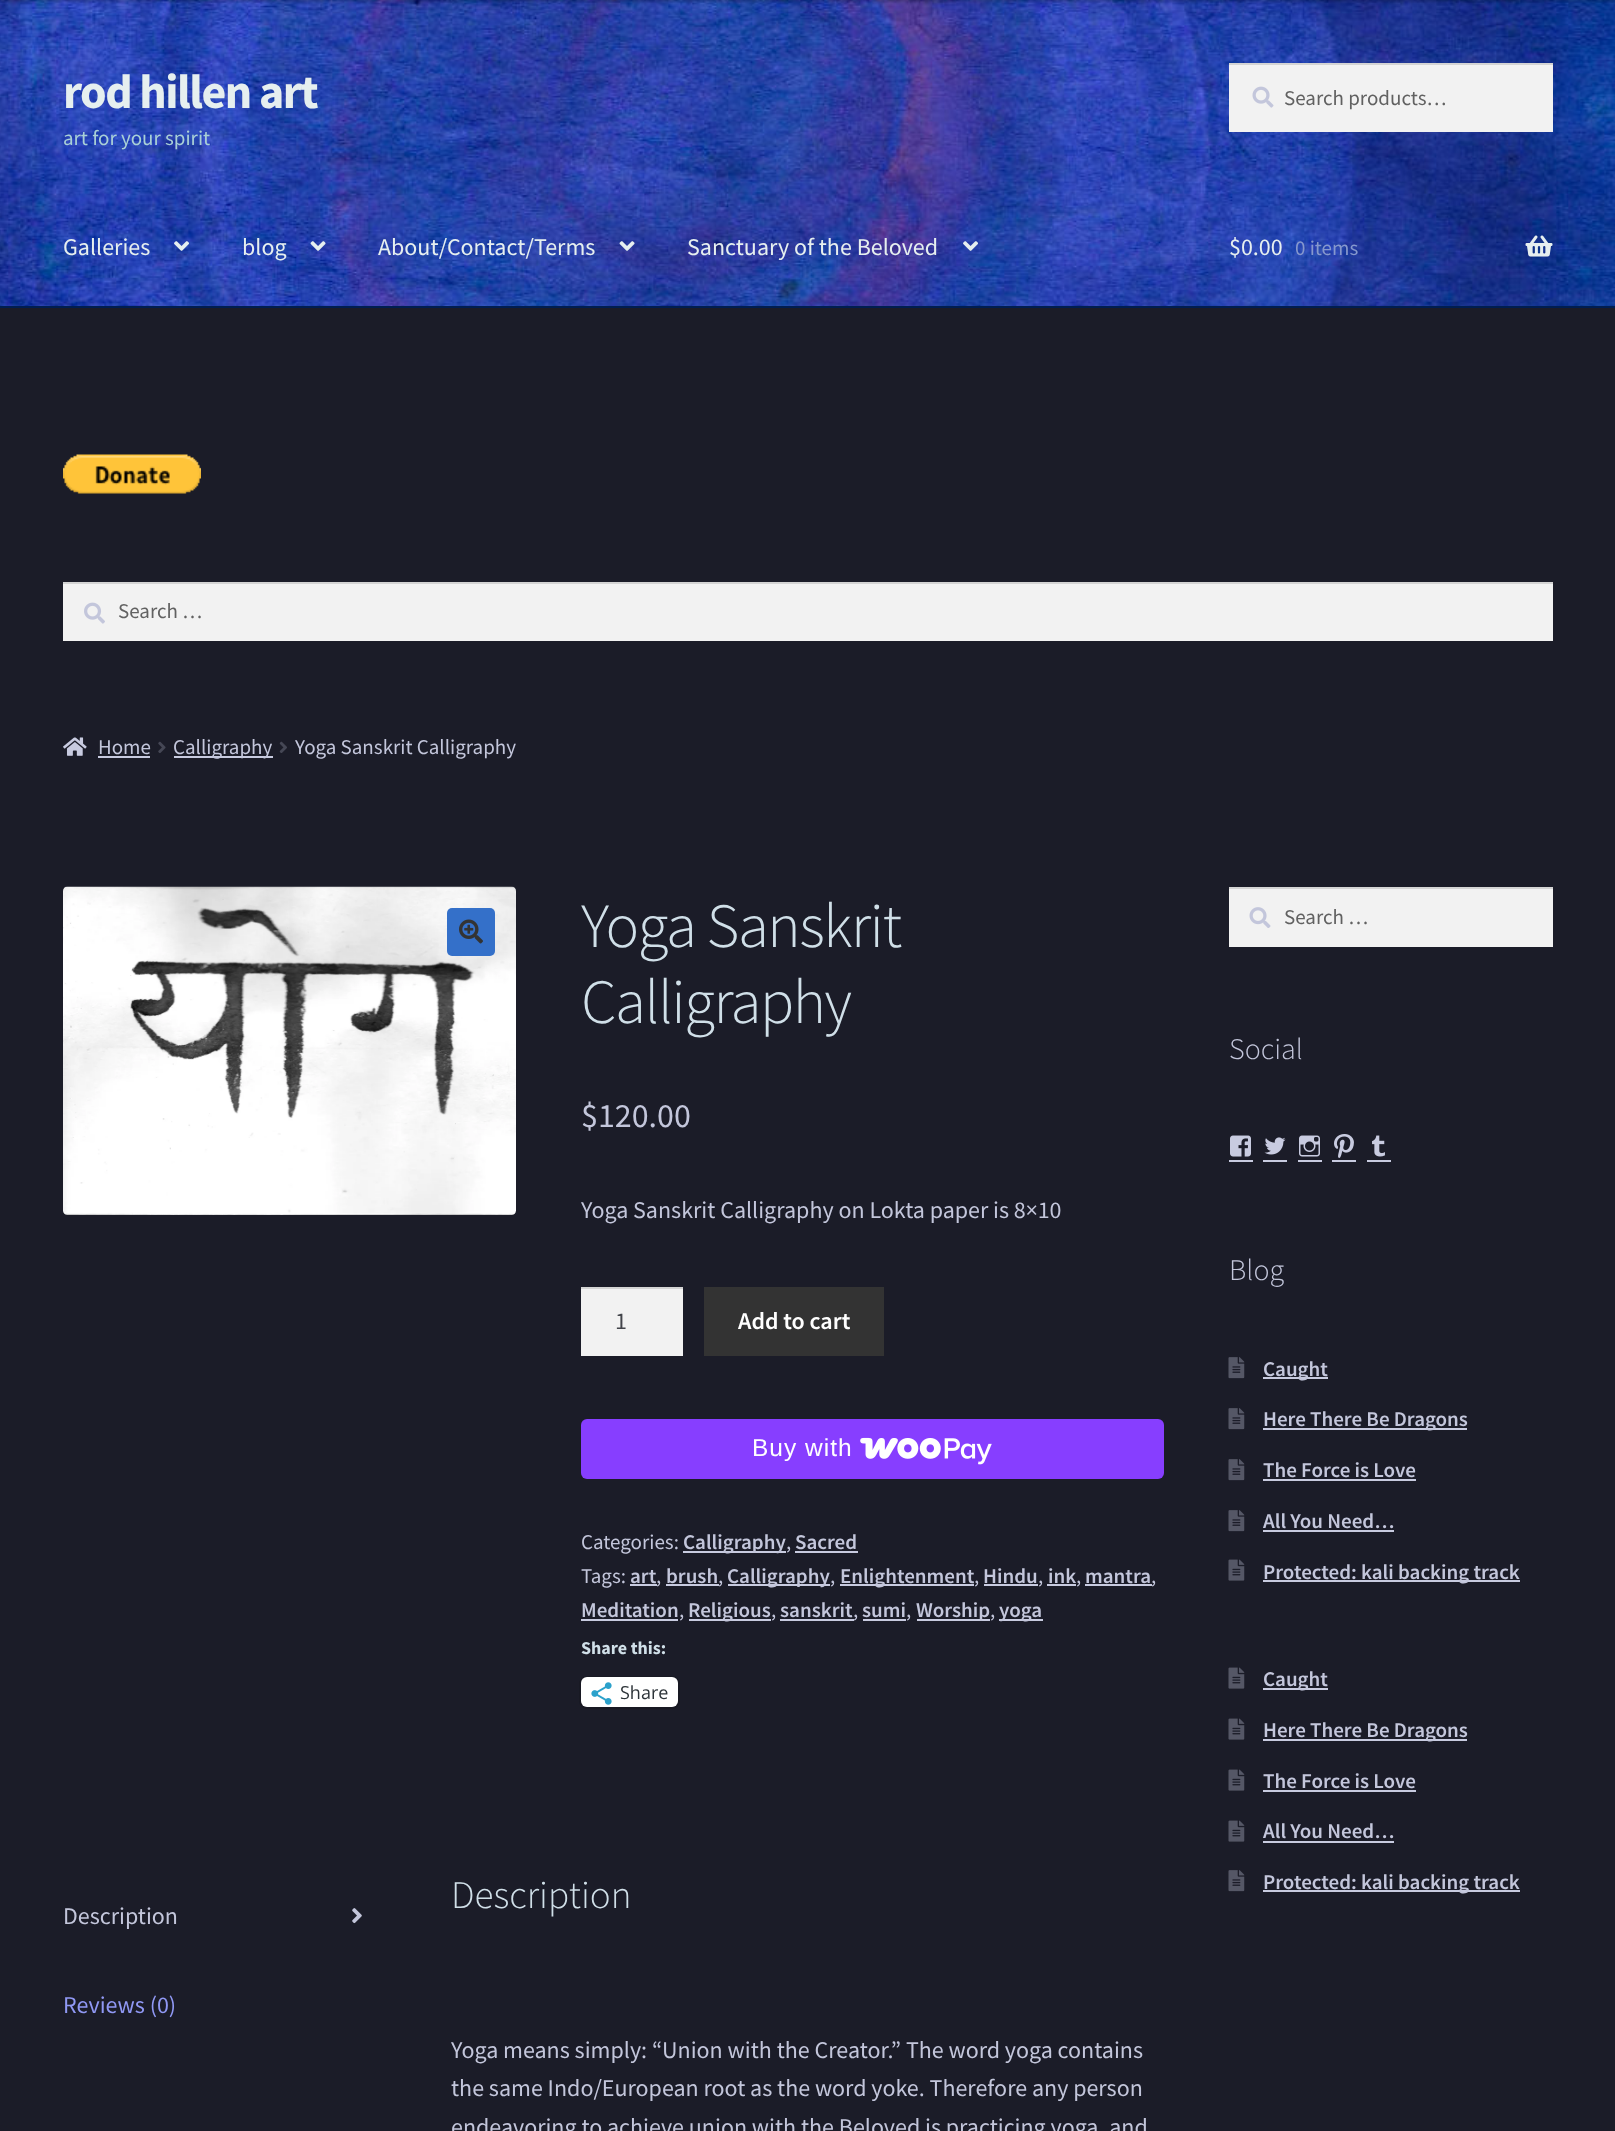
<?xml version="1.0" encoding="UTF-8"?>
<svg xmlns="http://www.w3.org/2000/svg" xmlns:xlink="http://www.w3.org/1999/xlink" width="1615" height="2131">
  <rect width="100%" height="100%" fill="#1b1c28" />
  <image x="0" y="0" width="1615" height="306" xlink:href="image1.png" />
  <rect y="-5" width="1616" height="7" fill="#000000" fill-opacity="0.2" filter="blur(1.5px)" />
  <rect y="306" width="1615" height="2" fill="#001e51" />
  <rect x="1229" y="65" width="324" height="67" fill="#f2f2f2" />
  <image x="1252" y="86" width="22" height="22" xlink:href="image2.png" />
  <rect x="1229" y="63" width="324" height="2" fill="#d4d4d4" />
  <image x="174" y="241" width="15" height="10" xlink:href="image3.png" />
  <image x="310" y="241" width="16" height="10" xlink:href="image4.png" />
  <image x="619" y="241" width="16" height="10" xlink:href="image5.png" />
  <image x="963" y="241" width="15" height="10" xlink:href="image6.png" />
  <image x="1525" y="235" width="28" height="22" xlink:href="image7.png" />
  <image x="63" y="454" width="138" height="40" xlink:href="image8.png" />
  <rect x="63" y="584" width="1490" height="57" fill="#f2f2f2" />
  <image x="84" y="602" width="21" height="22" xlink:href="image9.png" />
  <rect x="63" y="582" width="1490" height="2" fill="#d4d4d4" />
  <image x="63" y="737" width="24" height="19" xlink:href="image10.png" />
  <rect x="98" y="756" width="52" height="2" fill="#c8cbe0" />
  <image x="158" y="741" width="8" height="12" xlink:href="image11.png" />
  <rect x="174" y="756" width="99" height="2" fill="#c8cbe0" />
  <image x="279" y="741" width="8" height="12" xlink:href="image12.png" />
  <image x="63" y="886" width="453" height="329" xlink:href="image13.png" />
  <rect x="447" y="908" width="48" height="48" rx="5" fill="#3470c9" />
  <image x="459" y="919" width="24" height="25" xlink:href="image14.png" />
  <rect x="581" y="1289" width="102" height="67" fill="#f2f2f2" />
  <rect x="581" y="1287" width="102" height="2" fill="#d4d4d4" />
  <rect x="704" y="1287" width="180" height="69" fill="#333333" />
  <rect x="581" y="1419" width="583" height="60" rx="6" fill="#873eff" />
  <image x="860" y="1437" width="132" height="28" xlink:href="image15.png" />
  <rect x="683" y="1551" width="103" height="2" fill="#c8cbe0" />
  <rect x="795" y="1551" width="63" height="2" fill="#c8cbe0" />
  <rect x="630" y="1584" width="27" height="2" fill="#c8cbe0" />
  <rect x="666" y="1584" width="53" height="2" fill="#c8cbe0" />
  <rect x="728" y="1584" width="102" height="2" fill="#c8cbe0" />
  <rect x="840" y="1584" width="134" height="2" fill="#c8cbe0" />
  <rect x="984" y="1584" width="54" height="2" fill="#c8cbe0" />
  <rect x="1047" y="1584" width="29" height="2" fill="#c8cbe0" />
  <rect x="1085" y="1584" width="67" height="2" fill="#c8cbe0" />
  <rect x="581" y="1619" width="97" height="2" fill="#c8cbe0" />
  <rect x="689" y="1619" width="82" height="2" fill="#c8cbe0" />
  <rect x="780" y="1619" width="74" height="2" fill="#c8cbe0" />
  <rect x="863" y="1619" width="43" height="2" fill="#c8cbe0" />
  <rect x="917" y="1619" width="73" height="2" fill="#c8cbe0" />
  <rect x="999" y="1619" width="44" height="2" fill="#c8cbe0" />
  <rect x="580" y="1677" width="99" height="31" rx="7" fill="none" stroke="#181923" stroke-width="2" />
  <rect x="581" y="1677" width="97" height="30" rx="6" fill="#ffffff" />
  <image x="591" y="1682" width="21" height="23" xlink:href="image16.png" />
  <image x="352" y="1908" width="10" height="16" xlink:href="image17.png" />
  <rect x="1229" y="889" width="324" height="58" fill="#f2f2f2" />
  <image x="1249" y="907" width="22" height="21" xlink:href="image18.png" />
  <rect x="1229" y="887" width="324" height="2" fill="#d4d4d4" />
  <image x="1230" y="1135" width="21" height="22" xlink:href="image19.png" />
  <rect x="1229" y="1160" width="24" height="2" fill="#c8cbe0" />
  <image x="1264" y="1137" width="22" height="18" xlink:href="image20.png" />
  <rect x="1263" y="1160" width="24" height="2" fill="#c8cbe0" />
  <image x="1299" y="1135" width="21" height="22" xlink:href="image21.png" />
  <rect x="1298" y="1160" width="24" height="2" fill="#c8cbe0" />
  <image x="1334" y="1134" width="20" height="24" xlink:href="image22.png" />
  <rect x="1332" y="1160" width="24" height="2" fill="#c8cbe0" />
  <image x="1372" y="1135" width="13" height="22" xlink:href="image23.png" />
  <rect x="1367" y="1160" width="24" height="2" fill="#c8cbe0" />
  <image x="1228" y="1357" width="17" height="22" xlink:href="image24.png" />
  <rect x="1263" y="1377" width="65" height="2" fill="#c8cbe0" />
  <image x="1228" y="1408" width="17" height="22" xlink:href="image24.png" />
  <rect x="1263" y="1428" width="204" height="2" fill="#c8cbe0" />
  <image x="1228" y="1459" width="17" height="22" xlink:href="image24.png" />
  <rect x="1263" y="1479" width="153" height="2" fill="#c8cbe0" />
  <image x="1228" y="1510" width="17" height="22" xlink:href="image24.png" />
  <rect x="1263" y="1530" width="131" height="2" fill="#c8cbe0" />
  <image x="1228" y="1559" width="17" height="22" xlink:href="image25.png" />
  <rect x="1263" y="1580" width="257" height="2" fill="#c8cbe0" />
  <image x="1228" y="1667" width="17" height="22" xlink:href="image25.png" />
  <rect x="1263" y="1688" width="65" height="2" fill="#c8cbe0" />
  <image x="1228" y="1718" width="17" height="22" xlink:href="image25.png" />
  <rect x="1263" y="1739" width="204" height="2" fill="#c8cbe0" />
  <image x="1228" y="1769" width="17" height="22" xlink:href="image25.png" />
  <rect x="1263" y="1790" width="153" height="2" fill="#c8cbe0" />
  <image x="1228" y="1820" width="17" height="22" xlink:href="image25.png" />
  <rect x="1263" y="1841" width="131" height="2" fill="#c8cbe0" />
  <image x="1228" y="1870" width="17" height="22" xlink:href="image24.png" />
  <rect x="1263" y="1890" width="257" height="2" fill="#c8cbe0" />
  <text x="63" y="108" style="font-family: Source Sans Pro; font-size: 48px; font-weight: bold; letter-spacing: -1.5px; fill: #e6efef">rod hillen art</text>
  <text x="63" y="145" style="font-family: Source Sans Pro; font-size: 21px; fill: #a9d0d6">art for your spirit</text>
  <text x="1284" y="105" style="font-family: Source Sans Pro; font-size: 21px; fill: #616161">Search products…</text>
  <text x="63" y="255" style="font-family: Source Sans Pro; font-size: 24px; fill: #e6efef">Galleries</text>
  <text x="242" y="255" style="font-family: Source Sans Pro; font-size: 24px; fill: #e6efef">blog</text>
  <text x="378" y="255" style="font-family: Source Sans Pro; font-size: 24px; fill: #e6efef">About/Contact/Terms</text>
  <text x="687" y="255" style="font-family: Source Sans Pro; font-size: 24px; fill: #e6efef">Sanctuary of the Beloved</text>
  <text x="1229" y="255" style="font-family: Source Sans Pro; font-size: 24px; fill: #e6efef">$0.00</text>
  <text x="1295" y="255" style="font-family: Source Sans Pro; font-size: 21px; fill: #8698cd">0 items</text>
  <text x="118" y="618" style="font-family: Source Sans Pro; font-size: 21px; fill: #616161">Search …</text>
  <text x="98" y="754" style="font-family: Source Sans Pro; font-size: 21px; fill: #c3c6db">Home</text>
  <text x="173" y="754" style="font-family: Source Sans Pro; font-size: 21px; fill: #c3c6db">Calligraphy</text>
  <text x="295" y="754" style="font-family: Source Sans Pro; font-size: 21px; fill: #c3c6db">Yoga Sanskrit Calligraphy</text>
  <text x="581" y="947" style="font-family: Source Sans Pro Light; font-size: 63px; font-weight: 300; letter-spacing: -1.5px; fill: #d0dfe8">Yoga Sanskrit</text>
  <text x="581" y="1023" style="font-family: Source Sans Pro Light; font-size: 63px; font-weight: 300; letter-spacing: -1.5px; fill: #d0dfe8">Calligraphy</text>
  <text x="581" y="1127" style="font-family: Source Sans Pro; font-size: 34px; fill: #c3c6db">$120.00</text>
  <text x="581" y="1218" style="font-family: Source Sans Pro; font-size: 24px; fill: #c3c6db">Yoga Sanskrit Calligraphy on Lokta paper is 8×10</text>
  <text x="615" y="1329" style="font-family: Source Sans Pro; font-size: 24px; fill: #43454b">1</text>
  <text x="738" y="1329" style="font-family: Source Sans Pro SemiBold; font-size: 24px; font-weight: 600; fill: #ffffff">Add to cart</text>
  <text x="752" y="1456" style="font-family: Liberation Sans; font-size: 24.5px; letter-spacing: 1px; fill: #ffffff">Buy with</text>
  <text x="581" y="1549" style="font-family: Source Sans Pro; font-size: 21px; fill: #c3c6db">Categories:</text>
  <text x="683" y="1549" style="font-family: Source Sans Pro SemiBold; font-size: 21px; font-weight: 600; fill: #c3c6db">Calligraphy</text>
  <text x="786" y="1549" style="font-family: Source Sans Pro; font-size: 21px; fill: #c3c6db">,</text>
  <text x="795" y="1549" style="font-family: Source Sans Pro SemiBold; font-size: 21px; font-weight: 600; fill: #c3c6db">Sacred</text>
  <text x="581" y="1583" style="font-family: Source Sans Pro; font-size: 21px; fill: #c3c6db">Tags:</text>
  <text x="630" y="1583" style="font-family: Source Sans Pro SemiBold; font-size: 21px; font-weight: 600; fill: #c3c6db">art</text>
  <text x="656" y="1583" style="font-family: Source Sans Pro; font-size: 21px; fill: #c3c6db">,</text>
  <text x="666" y="1583" style="font-family: Source Sans Pro SemiBold; font-size: 21px; font-weight: 600; fill: #c3c6db">brush</text>
  <text x="718" y="1583" style="font-family: Source Sans Pro; font-size: 21px; fill: #c3c6db">,</text>
  <text x="727" y="1583" style="font-family: Source Sans Pro SemiBold; font-size: 21px; font-weight: 600; fill: #c3c6db">Calligraphy</text>
  <text x="830" y="1583" style="font-family: Source Sans Pro; font-size: 21px; fill: #c3c6db">,</text>
  <text x="840" y="1583" style="font-family: Source Sans Pro SemiBold; font-size: 21px; font-weight: 600; fill: #c3c6db">Enlightenment</text>
  <text x="974" y="1583" style="font-family: Source Sans Pro; font-size: 21px; fill: #c3c6db">,</text>
  <text x="983" y="1583" style="font-family: Source Sans Pro SemiBold; font-size: 21px; font-weight: 600; fill: #c3c6db">Hindu</text>
  <text x="1038" y="1583" style="font-family: Source Sans Pro; font-size: 21px; fill: #c3c6db">,</text>
  <text x="1048" y="1583" style="font-family: Source Sans Pro SemiBold; font-size: 21px; font-weight: 600; fill: #c3c6db">ink</text>
  <text x="1076" y="1583" style="font-family: Source Sans Pro; font-size: 21px; fill: #c3c6db">,</text>
  <text x="1085" y="1583" style="font-family: Source Sans Pro SemiBold; font-size: 21px; font-weight: 600; fill: #c3c6db">mantra</text>
  <text x="1151" y="1583" style="font-family: Source Sans Pro; font-size: 21px; fill: #c3c6db">,</text>
  <text x="581" y="1617" style="font-family: Source Sans Pro SemiBold; font-size: 21px; font-weight: 600; fill: #c3c6db">Meditation</text>
  <text x="679" y="1617" style="font-family: Source Sans Pro; font-size: 21px; fill: #c3c6db">,</text>
  <text x="688" y="1617" style="font-family: Source Sans Pro SemiBold; font-size: 21px; font-weight: 600; fill: #c3c6db">Religious</text>
  <text x="771" y="1617" style="font-family: Source Sans Pro; font-size: 21px; fill: #c3c6db">,</text>
  <text x="780" y="1617" style="font-family: Source Sans Pro SemiBold; font-size: 21px; font-weight: 600; fill: #c3c6db">sanskrit</text>
  <text x="853" y="1617" style="font-family: Source Sans Pro; font-size: 21px; fill: #c3c6db">,</text>
  <text x="862" y="1617" style="font-family: Source Sans Pro SemiBold; font-size: 21px; font-weight: 600; fill: #c3c6db">sumi</text>
  <text x="906" y="1617" style="font-family: Source Sans Pro; font-size: 21px; fill: #c3c6db">,</text>
  <text x="916" y="1617" style="font-family: Source Sans Pro SemiBold; font-size: 21px; font-weight: 600; fill: #c3c6db">Worship</text>
  <text x="990" y="1617" style="font-family: Source Sans Pro; font-size: 21px; fill: #c3c6db">,</text>
  <text x="999" y="1617" style="font-family: Source Sans Pro SemiBold; font-size: 21px; font-weight: 600; fill: #c3c6db">yoga</text>
  <text x="581" y="1654" style="font-family: Source Sans Pro; font-size: 18px; font-weight: bold; fill: #d0dfe8">Share this:</text>
  <text x="620" y="1699" style="font-family: Open Sans; font-size: 18px; fill: #2c3338">Share</text>
  <text x="63" y="1924" style="font-family: Source Sans Pro; font-size: 24px; fill: #c3c6db">Description</text>
  <text x="63" y="2013" style="font-family: Source Sans Pro; font-size: 24px; fill: #9098f4">Reviews (0)</text>
  <text x="451" y="1908" style="font-family: Source Sans Pro Light; font-size: 39px; font-weight: 300; fill: #d0dfe8">Description</text>
  <text x="451" y="2058" style="font-family: Source Sans Pro; font-size: 24px; fill: #c3c6db">Yoga means simply: “Union with the Creator.” The word yoga contains</text>
  <text x="451" y="2096" style="font-family: Source Sans Pro; font-size: 24px; fill: #c3c6db">the same Indo/European root as the word yoke. Therefore any person</text>
  <text x="451" y="2135" style="font-family: Source Sans Pro; font-size: 24px; fill: #c3c6db">endeavoring to achieve union with the Beloved is practicing yoga, and</text>
  <text x="1284" y="924" style="font-family: Source Sans Pro; font-size: 21px; fill: #616161">Search …</text>
  <text x="1229" y="1059" style="font-family: Source Sans Pro Light; font-size: 30px; font-weight: 300; fill: #c3c6db">Social</text>
  <text x="1229" y="1280" style="font-family: Source Sans Pro Light; font-size: 30px; font-weight: 300; fill: #c3c6db">Blog</text>
  <text x="1263" y="1376" style="font-family: Source Sans Pro SemiBold; font-size: 21px; font-weight: 600; fill: #c3c6db">Caught</text>
  <text x="1263" y="1426" style="font-family: Source Sans Pro SemiBold; font-size: 21px; font-weight: 600; fill: #c3c6db">Here There Be Dragons</text>
  <text x="1263" y="1477" style="font-family: Source Sans Pro SemiBold; font-size: 21px; font-weight: 600; fill: #c3c6db">The Force is Love</text>
  <text x="1263" y="1528" style="font-family: Source Sans Pro SemiBold; font-size: 21px; font-weight: 600; fill: #c3c6db">All You Need…</text>
  <text x="1263" y="1579" style="font-family: Source Sans Pro SemiBold; font-size: 21px; font-weight: 600; fill: #c3c6db">Protected: kali backing track</text>
  <text x="1263" y="1686" style="font-family: Source Sans Pro SemiBold; font-size: 21px; font-weight: 600; fill: #c3c6db">Caught</text>
  <text x="1263" y="1737" style="font-family: Source Sans Pro SemiBold; font-size: 21px; font-weight: 600; fill: #c3c6db">Here There Be Dragons</text>
  <text x="1263" y="1788" style="font-family: Source Sans Pro SemiBold; font-size: 21px; font-weight: 600; fill: #c3c6db">The Force is Love</text>
  <text x="1263" y="1838" style="font-family: Source Sans Pro SemiBold; font-size: 21px; font-weight: 600; fill: #c3c6db">All You Need…</text>
  <text x="1263" y="1889" style="font-family: Source Sans Pro SemiBold; font-size: 21px; font-weight: 600; fill: #c3c6db">Protected: kali backing track</text>
</svg>
